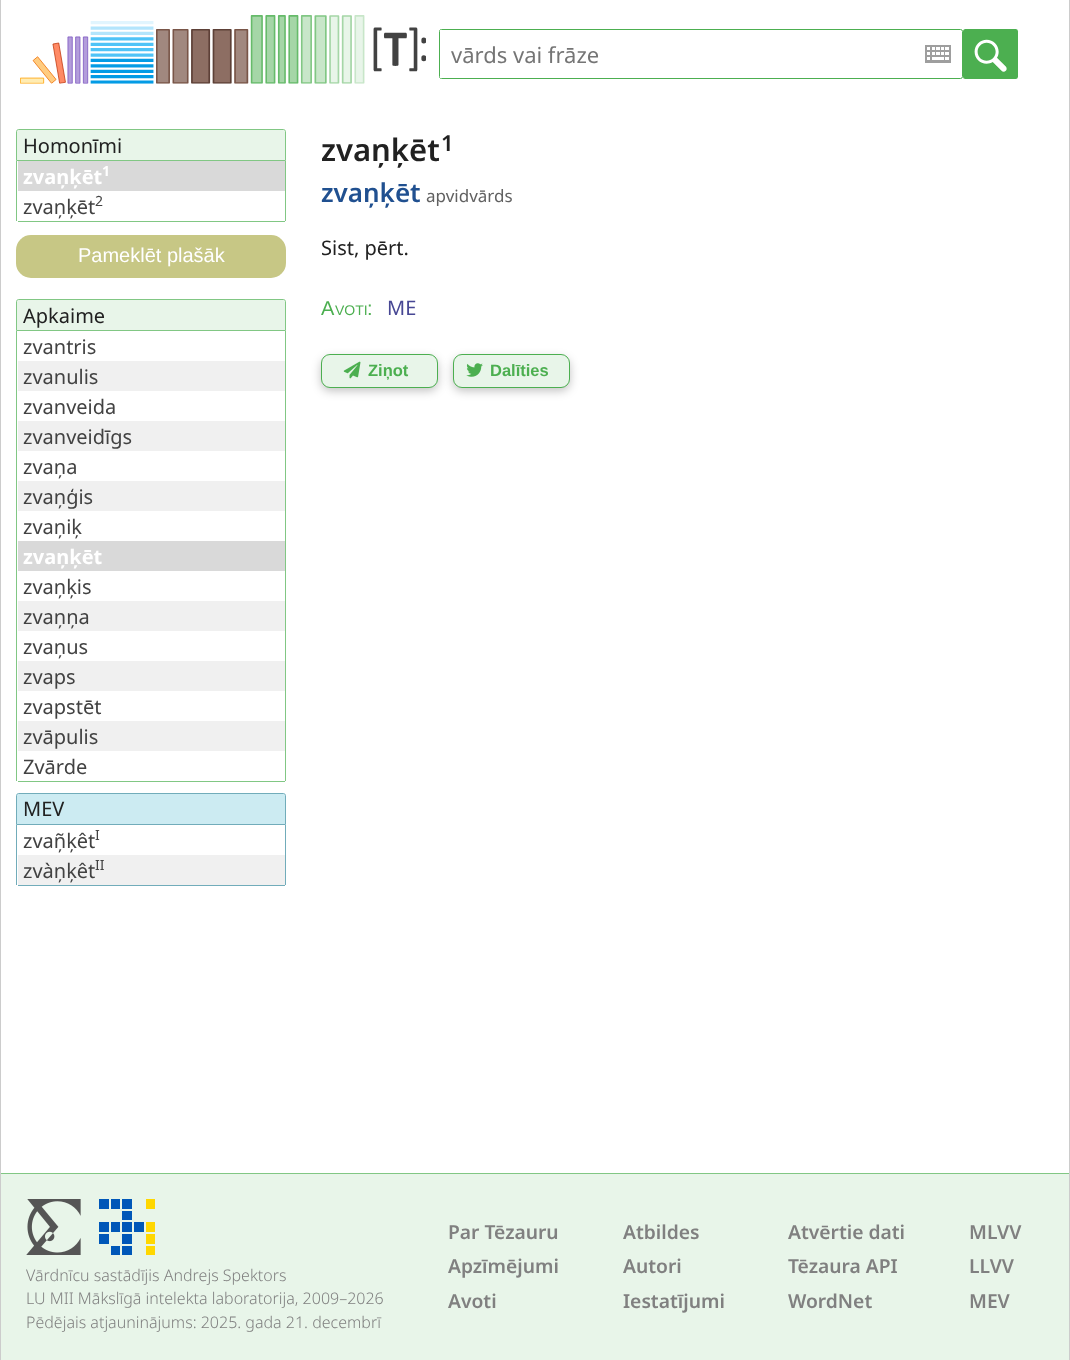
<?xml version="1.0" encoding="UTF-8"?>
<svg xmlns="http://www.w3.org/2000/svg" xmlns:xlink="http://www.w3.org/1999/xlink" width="1070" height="1360">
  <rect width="100%" height="100%" fill="#ffffff" />
  <rect x="1069" width="1" height="1360" fill="#cccccc" />
  <rect width="1" height="1360" fill="#cccccc" />
  <image x="20" y="15" width="406" height="69" xlink:href="image1.png" />
  <rect x="439.5" y="29.5" width="523" height="49" rx="2" fill="none" stroke="#4caf50" />
  <rect x="440" y="30" width="2" height="48" fill="#ffffff" />
  <image x="925" y="45" width="26" height="18" xlink:href="image2.png" />
  <rect x="963" y="29" width="55" height="50" rx="2.5" fill="#4caf50" />
  <image x="974" y="39" width="33" height="33" xlink:href="image3.png" />
  <path d="M 18.5 129.5 h 265 c 1 0 2 1 2 2 v 29 h -269 v -29 c 0 -1 1 -2 2 -2 z" fill="#e8f5e9" stroke="#81c784" />
  <rect x="285" y="161" width="1" height="60" fill="#81c784" />
  <rect x="18" y="221" width="267" height="1" fill="#81c784" />
  <rect x="16" y="161" width="1" height="60" fill="#81c784" />
  <rect x="18" y="161" width="267" height="30" fill="#d9d9d9" />
  <rect x="16" y="235" width="270" height="43" rx="15" fill="#c7c785" />
  <path d="M 18.5 299.5 h 265 c 1 0 2 1 2 2 v 29 h -269 v -29 c 0 -1 1 -2 2 -2 z" fill="#e8f5e9" stroke="#81c784" />
  <rect x="285" y="331" width="1" height="450" fill="#81c784" />
  <rect x="18" y="781" width="267" height="1" fill="#81c784" />
  <rect x="16" y="331" width="1" height="450" fill="#81c784" />
  <rect x="18" y="361" width="267" height="30" fill="#f0f0f0" />
  <rect x="18" y="421" width="267" height="30" fill="#f0f0f0" />
  <rect x="18" y="481" width="267" height="30" fill="#f0f0f0" />
  <rect x="18" y="541" width="267" height="30" fill="#d9d9d9" />
  <rect x="18" y="601" width="267" height="30" fill="#f0f0f0" />
  <rect x="18" y="661" width="267" height="30" fill="#f0f0f0" />
  <rect x="18" y="721" width="267" height="30" fill="#f0f0f0" />
  <path d="M 18.5 793.5 h 265 c 1 0 2 1 2 2 v 29 h -269 v -29 c 0 -1 1 -2 2 -2 z" fill="#ccebf2" stroke="#71acba" />
  <rect x="285" y="825" width="1" height="60" fill="#71acba" />
  <rect x="18" y="885" width="267" height="1" fill="#71acba" />
  <rect x="16" y="825" width="1" height="60" fill="#71acba" />
  <rect x="18" y="855" width="267" height="30" fill="#f0f0f0" />
  <rect x="321" y="358" width="117" height="33" rx="9" fill="#000000" fill-opacity="0.24" filter="blur(5px)" />
  <rect x="321.5" y="354.5" width="116" height="33" rx="8.5" fill="#e8f5e9" stroke="#4caf50" />
  <image x="343" y="361" width="18" height="18" xlink:href="image4.png" />
  <rect x="453" y="358" width="117" height="33" rx="9" fill="#000000" fill-opacity="0.24" filter="blur(5px)" />
  <rect x="453.5" y="354.5" width="116" height="33" rx="8.5" fill="#e8f5e9" stroke="#4caf50" />
  <image x="466" y="363" width="17" height="14" xlink:href="image5.png" />
  <rect x="1" y="1174" width="1068" height="186" fill="#e8f5e9" />
  <rect x="1" y="1173" width="1068" height="1" fill="#81c784" />
  <image x="26" y="1199" width="55" height="56" xlink:href="image6.png" />
  <image x="99" y="1199" width="56" height="56" xlink:href="image7.png" />
  <text x="451" y="63" style="font-family: Noto Sans; font-size: 22px; fill: #757575">vārds vai frāze</text>
  <text x="23" y="153" style="font-family: Noto Sans; font-size: 20px; fill: #212121">Homonīmi</text>
  <text x="23" y="184" style="font-family: Noto Sans; font-size: 20px; font-weight: bold; fill: #ffffff">zvaņķēt</text>
  <text x="102" y="176" style="font-family: Noto Sans; font-size: 14px; font-weight: bold; fill: #ffffff">1</text>
  <text x="23" y="214" style="font-family: Noto Sans; font-size: 20px; fill: #424242">zvaņķēt</text>
  <text x="95" y="206" style="font-family: Noto Sans; font-size: 14px; fill: #424242">2</text>
  <text x="78" y="262" style="font-family: Liberation Sans; font-size: 20px; fill: #ffffff">Pameklēt plašāk</text>
  <text x="23" y="323" style="font-family: Noto Sans; font-size: 20px; fill: #212121">Apkaime</text>
  <text x="23" y="354" style="font-family: Noto Sans; font-size: 20px; fill: #424242">zvantris</text>
  <text x="23" y="384" style="font-family: Noto Sans; font-size: 20px; fill: #424242">zvanulis</text>
  <text x="23" y="414" style="font-family: Noto Sans; font-size: 20px; fill: #424242">zvanveida</text>
  <text x="23" y="444" style="font-family: Noto Sans; font-size: 20px; fill: #424242">zvanveidīgs</text>
  <text x="23" y="474" style="font-family: Noto Sans; font-size: 20px; fill: #424242">zvaņa</text>
  <text x="23" y="504" style="font-family: Noto Sans; font-size: 20px; fill: #424242">zvaņģis</text>
  <text x="23" y="534" style="font-family: Noto Sans; font-size: 20px; fill: #424242">zvaņiķ</text>
  <text x="23" y="564" style="font-family: Noto Sans; font-size: 20px; font-weight: bold; fill: #ffffff">zvaņķēt</text>
  <text x="23" y="594" style="font-family: Noto Sans; font-size: 20px; fill: #424242">zvaņķis</text>
  <text x="23" y="624" style="font-family: Noto Sans; font-size: 20px; fill: #424242">zvaņņa</text>
  <text x="23" y="654" style="font-family: Noto Sans; font-size: 20px; fill: #424242">zvaņus</text>
  <text x="23" y="684" style="font-family: Noto Sans; font-size: 20px; fill: #424242">zvaps</text>
  <text x="23" y="714" style="font-family: Noto Sans; font-size: 20px; fill: #424242">zvapstēt</text>
  <text x="23" y="744" style="font-family: Noto Sans; font-size: 20px; fill: #424242">zvāpulis</text>
  <text x="23" y="774" style="font-family: Noto Sans; font-size: 20px; fill: #424242">Zvārde</text>
  <text x="23" y="816" style="font-family: Noto Sans; font-size: 20px; fill: #212121">MEV</text>
  <text x="23" y="848" style="font-family: Noto Sans; font-size: 20px; fill: #424242">zvaņ̃ķêt</text>
  <text x="95" y="840" style="font-family: Noto Sans; font-size: 14px; fill: #424242">I</text>
  <text x="23" y="878" style="font-family: Noto Sans; font-size: 20px; fill: #424242">zvàņķêt</text>
  <text x="95" y="870" style="font-family: Noto Sans; font-size: 14px; fill: #424242">II</text>
  <text x="321" y="161" style="font-family: Noto Sans; font-size: 31px; font-weight: 600; fill: #212121">zvaņķēt</text>
  <text x="441" y="151" style="font-family: Noto Sans; font-size: 22px; font-weight: 600; fill: #212121">1</text>
  <text x="321" y="202" style="font-family: Noto Sans; font-size: 26px; font-weight: 600; fill: #205090">zvaņķēt</text>
  <text x="426" y="202" style="font-family: Noto Sans; font-size: 17px; fill: #616161">apvidvārds</text>
  <text x="321" y="255" style="font-family: Noto Sans; font-size: 20px; fill: #212121">Sist, pērt.</text>
  <text x="321" y="315" style="font-family: Liberation Sans; font-size: 20px; fill: #4caf50">A</text>
  <text x="335" y="315" style="font-family: Liberation Sans; font-size: 14px; fill: #4caf50">VOTI</text>
  <text x="367" y="315" style="font-family: Liberation Sans; font-size: 20px; fill: #4caf50">:</text>
  <text x="387" y="315" style="font-family: Noto Sans; font-size: 20px; fill: #474794">ME</text>
  <text x="368" y="376" style="font-family: Liberation Sans; font-size: 16.5px; font-weight: bold; fill: #4caf50">Ziņot</text>
  <text x="490" y="376" style="font-family: Liberation Sans; font-size: 16.5px; font-weight: bold; fill: #4caf50">Dalīties</text>
  <text x="26" y="1281" style="font-family: Noto Sans; font-size: 16px; font-weight: 300; fill: #808080">Vārdnīcu sastādījis Andrejs Spektors</text>
  <text x="26" y="1304" style="font-family: Noto Sans; font-size: 16px; font-weight: 300; fill: #808080">LU MII Mākslīgā intelekta laboratorija, 2009–2026</text>
  <text x="26" y="1328" style="font-family: Noto Sans; font-size: 16px; font-weight: 300; fill: #808080">Pēdējais atjauninājums: 2025. gada 21. decembrī</text>
  <text x="448" y="1239" style="font-family: Noto Sans; font-size: 19.25px; font-weight: 600; fill: #808080">Par Tēzauru</text>
  <text x="448" y="1273" style="font-family: Noto Sans; font-size: 19.25px; font-weight: 600; fill: #808080">Apzīmējumi</text>
  <text x="448" y="1308" style="font-family: Noto Sans; font-size: 19.25px; font-weight: 600; fill: #808080">Avoti</text>
  <text x="623" y="1239" style="font-family: Noto Sans; font-size: 19.25px; font-weight: 600; fill: #808080">Atbildes</text>
  <text x="623" y="1273" style="font-family: Noto Sans; font-size: 19.25px; font-weight: 600; fill: #808080">Autori</text>
  <text x="623" y="1308" style="font-family: Noto Sans; font-size: 19.25px; font-weight: 600; fill: #808080">Iestatījumi</text>
  <text x="788" y="1239" style="font-family: Noto Sans; font-size: 19.25px; font-weight: 600; fill: #808080">Atvērtie dati</text>
  <text x="788" y="1273" style="font-family: Noto Sans; font-size: 19.25px; font-weight: 600; fill: #808080">Tēzaura API</text>
  <text x="788" y="1308" style="font-family: Noto Sans; font-size: 19.25px; font-weight: 600; fill: #808080">WordNet</text>
  <text x="969" y="1239" style="font-family: Noto Sans; font-size: 19.25px; font-weight: 600; fill: #808080">MLVV</text>
  <text x="969" y="1273" style="font-family: Noto Sans; font-size: 19.25px; font-weight: 600; fill: #808080">LLVV</text>
  <text x="969" y="1308" style="font-family: Noto Sans; font-size: 19.25px; font-weight: 600; fill: #808080">MEV</text>
</svg>
